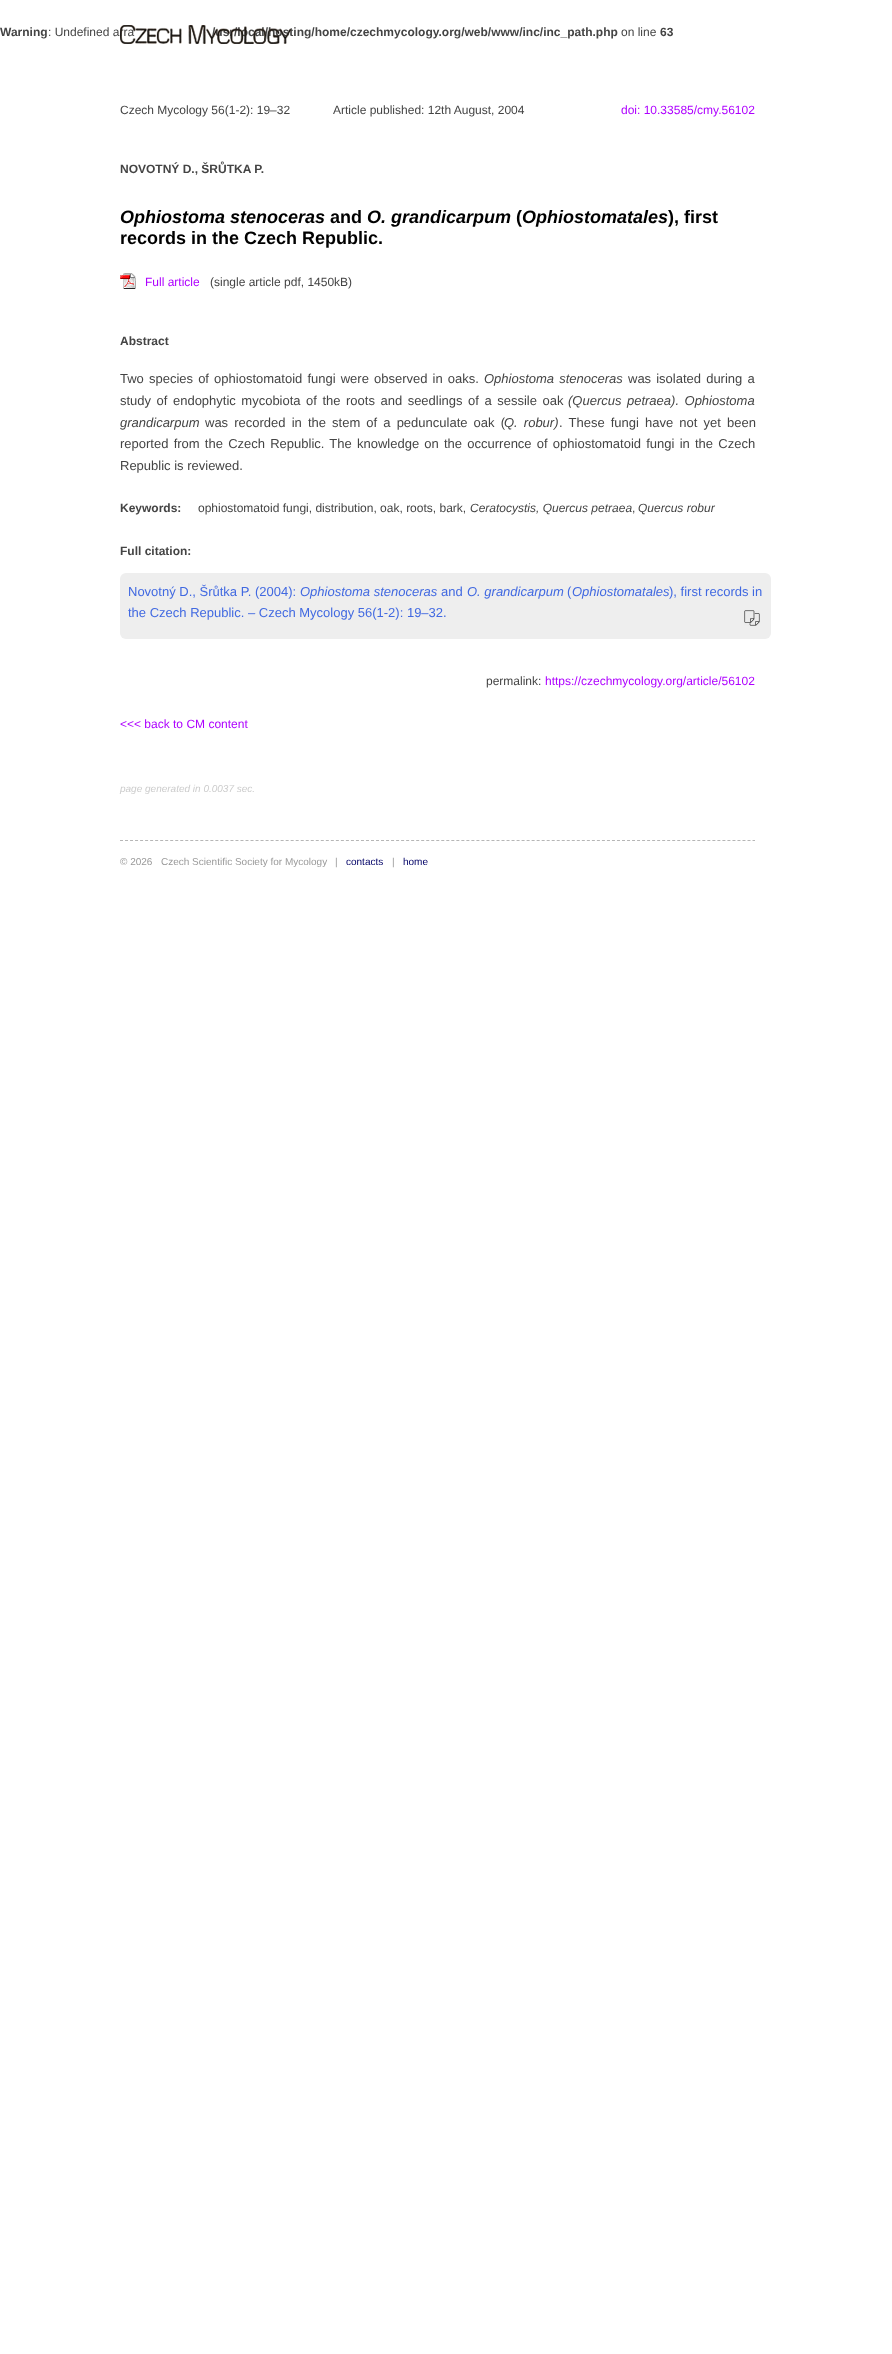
<?xml version="1.0" encoding="UTF-8"?>
<svg xmlns="http://www.w3.org/2000/svg" xmlns:xlink="http://www.w3.org/1999/xlink" width="892" height="2354">
  <rect width="100%" height="100%" fill="#ffffff" />
  <image x="120" y="273" width="16" height="16" xlink:href="image2.png" />
  <rect x="120" y="573" width="651" height="66" rx="6" fill="#eeeeee" />
  <image x="744" y="610" width="16" height="16" xlink:href="image3.png" />
  <path d="M 120 840.5 h 635" fill="none" stroke="#b6b6b6" stroke-dasharray="3 2.02" />
  <text x="0" y="36" style="font-family: Liberation Sans; font-size: 12px; font-weight: bold; fill: #444444">Warning</text>
  <text x="48" y="36" style="font-family: Liberation Sans; font-size: 12px; fill: #444444">: Undefined arra</text>
  <text x="212" y="36" style="font-family: Liberation Sans; font-size: 12px; font-weight: bold; fill: #444444">/usr/local/hosting/home/czechmycology.org/web/www/inc/inc_path.php</text>
  <image x="120" y="25" width="171" height="19" xlink:href="image1.png" />
  <text x="621" y="36" style="font-family: Liberation Sans; font-size: 12px; fill: #444444">on line</text>
  <text x="660" y="36" style="font-family: Liberation Sans; font-size: 12px; font-weight: bold; fill: #444444">63</text>
  <text x="120" y="114" style="font-family: Liberation Sans; font-size: 12px; fill: #444444">Czech Mycology 56(1-2): 19–32</text>
  <text x="333" y="114" style="font-family: Liberation Sans; font-size: 12px; fill: #444444">Article published: 12th August, 2004</text>
  <text x="621" y="114" style="font-family: Liberation Sans; font-size: 12px; fill: #ae00ff">doi: 10.33585/cmy.56102</text>
  <text x="120" y="173" style="font-family: Liberation Sans; font-size: 12px; font-weight: bold; fill: #444444">NOVOTNÝ D., ŠRŮTKA P.</text>
  <text x="120" y="223" style="font-family: Liberation Sans; font-size: 18px; font-weight: bold; font-style: italic; fill: #000000">Ophiostoma stenoceras</text>
  <text x="330" y="223" style="font-family: Liberation Sans; font-size: 18px; font-weight: bold; fill: #000000">and</text>
  <text x="367" y="223" style="font-family: Liberation Sans; font-size: 18px; font-weight: bold; font-style: italic; fill: #000000">O. grandicarpum</text>
  <text x="516" y="223" style="font-family: Liberation Sans; font-size: 18px; font-weight: bold; fill: #000000">(</text>
  <text x="522" y="223" style="font-family: Liberation Sans; font-size: 18px; font-weight: bold; font-style: italic; fill: #000000">Ophiostomatales</text>
  <text x="668" y="223" style="font-family: Liberation Sans; font-size: 18px; font-weight: bold; fill: #000000">), first</text>
  <text x="120" y="244" style="font-family: Liberation Sans; font-size: 18px; font-weight: bold; fill: #000000">records in the Czech Republic.</text>
  <text x="145" y="286" style="font-family: Liberation Sans; font-size: 12px; fill: #ae00ff">Full article</text>
  <text x="210" y="286" style="font-family: Liberation Sans; font-size: 12px; fill: #444444">(single article pdf, 1450kB)</text>
  <text x="120" y="345" style="font-family: Liberation Sans; font-size: 12px; font-weight: bold; fill: #444444">Abstract</text>
  <text x="120" y="383" word-spacing="1.5" style="font-family: Liberation Sans; font-size: 13px; fill: #444444">Two species of ophiostomatoid fungi were observed in oaks.</text>
  <text x="484" y="383" word-spacing="1.5" style="font-family: Liberation Sans; font-size: 13px; font-style: italic; fill: #444444">Ophiostoma stenoceras</text>
  <text x="628" y="383" word-spacing="1.5" style="font-family: Liberation Sans; font-size: 13px; fill: #444444">was isolated during a</text>
  <text x="120" y="405" word-spacing="1.9" style="font-family: Liberation Sans; font-size: 13px; fill: #444444">study of endophytic mycobiota of the roots and seedlings of a sessile oak</text>
  <text x="568" y="405" word-spacing="1.9" style="font-family: Liberation Sans; font-size: 13px; font-style: italic; fill: #444444">(Quercus petraea). Ophiostoma</text>
  <text x="120" y="427" style="font-family: Liberation Sans; font-size: 13px; font-style: italic; fill: #444444">grandicarpum</text>
  <text x="205" y="427" word-spacing="2.5" style="font-family: Liberation Sans; font-size: 13px; fill: #444444">was recorded in the stem of a pedunculate oak (</text>
  <text x="504" y="427" word-spacing="2.5" style="font-family: Liberation Sans; font-size: 13px; font-style: italic; fill: #444444">Q. robur)</text>
  <text x="559" y="427" word-spacing="2.5" style="font-family: Liberation Sans; font-size: 13px; fill: #444444">. These fungi have not yet been</text>
  <text x="120" y="448" word-spacing="1.6" style="font-family: Liberation Sans; font-size: 13px; fill: #444444">reported from the Czech Republic. The knowledge on the occurrence of ophiostomatoid fungi in the Czech</text>
  <text x="120" y="470" style="font-family: Liberation Sans; font-size: 13px; fill: #444444">Republic is reviewed.</text>
  <text x="120" y="512" style="font-family: Liberation Sans; font-size: 12px; font-weight: bold; fill: #444444">Keywords:</text>
  <text x="198" y="512" style="font-family: Liberation Sans; font-size: 12px; fill: #444444">ophiostomatoid fungi, distribution, oak, roots, bark,</text>
  <text x="470" y="512" style="font-family: Liberation Sans; font-size: 12px; font-style: italic; fill: #444444">Ceratocystis, Quercus petraea</text>
  <text x="632" y="512" style="font-family: Liberation Sans; font-size: 12px; fill: #444444">,</text>
  <text x="638" y="512" style="font-family: Liberation Sans; font-size: 12px; font-style: italic; fill: #444444">Quercus robur</text>
  <text x="120" y="555" style="font-family: Liberation Sans; font-size: 12px; font-weight: bold; fill: #444444">Full citation:</text>
  <text x="128" y="596" style="font-family: Liberation Sans; font-size: 13px; fill: #4169e1">Novotný D., Šrůtka P. (2004):</text>
  <text x="300" y="596" style="font-family: Liberation Sans; font-size: 13px; font-style: italic; fill: #4169e1">Ophiostoma stenoceras</text>
  <text x="441" y="596" style="font-family: Liberation Sans; font-size: 13px; fill: #4169e1">and</text>
  <text x="467" y="596" style="font-family: Liberation Sans; font-size: 13px; font-style: italic; fill: #4169e1">O. grandicarpum</text>
  <text x="567" y="596" style="font-family: Liberation Sans; font-size: 13px; fill: #4169e1">(</text>
  <text x="572" y="596" style="font-family: Liberation Sans; font-size: 13px; font-style: italic; fill: #4169e1">Ophiostomatales</text>
  <text x="669" y="596" style="font-family: Liberation Sans; font-size: 13px; fill: #4169e1">), first records in</text>
  <text x="128" y="617" style="font-family: Liberation Sans; font-size: 13px; fill: #4169e1">the Czech Republic. – Czech Mycology 56(1-2): 19–32.</text>
  <text x="486" y="685" style="font-family: Liberation Sans; font-size: 12px; fill: #444444">permalink:</text>
  <text x="545" y="685" style="font-family: Liberation Sans; font-size: 12px; fill: #ae00ff">https://czechmycology.org/article/56102</text>
  <text x="120" y="728" style="font-family: Liberation Sans; font-size: 12px; fill: #ae00ff">&lt;&lt;&lt; back to CM content</text>
  <text x="120" y="792" style="font-family: Liberation Sans; font-size: 10px; font-style: italic; fill: #cccccc">page generated in 0.0037 sec.</text>
  <text x="120" y="865" style="font-family: Liberation Sans; font-size: 10px; fill: #999999">© 2026</text>
  <text x="161" y="865" style="font-family: Liberation Sans; font-size: 10px; fill: #999999">Czech Scientific Society for Mycology</text>
  <text x="335" y="865" style="font-family: Liberation Sans; font-size: 10px; fill: #999999">|</text>
  <text x="346" y="865" style="font-family: Liberation Sans; font-size: 10px; fill: #000066">contacts</text>
  <text x="392" y="865" style="font-family: Liberation Sans; font-size: 10px; fill: #999999">|</text>
  <text x="403" y="865" style="font-family: Liberation Sans; font-size: 10px; fill: #000066">home</text>
</svg>
